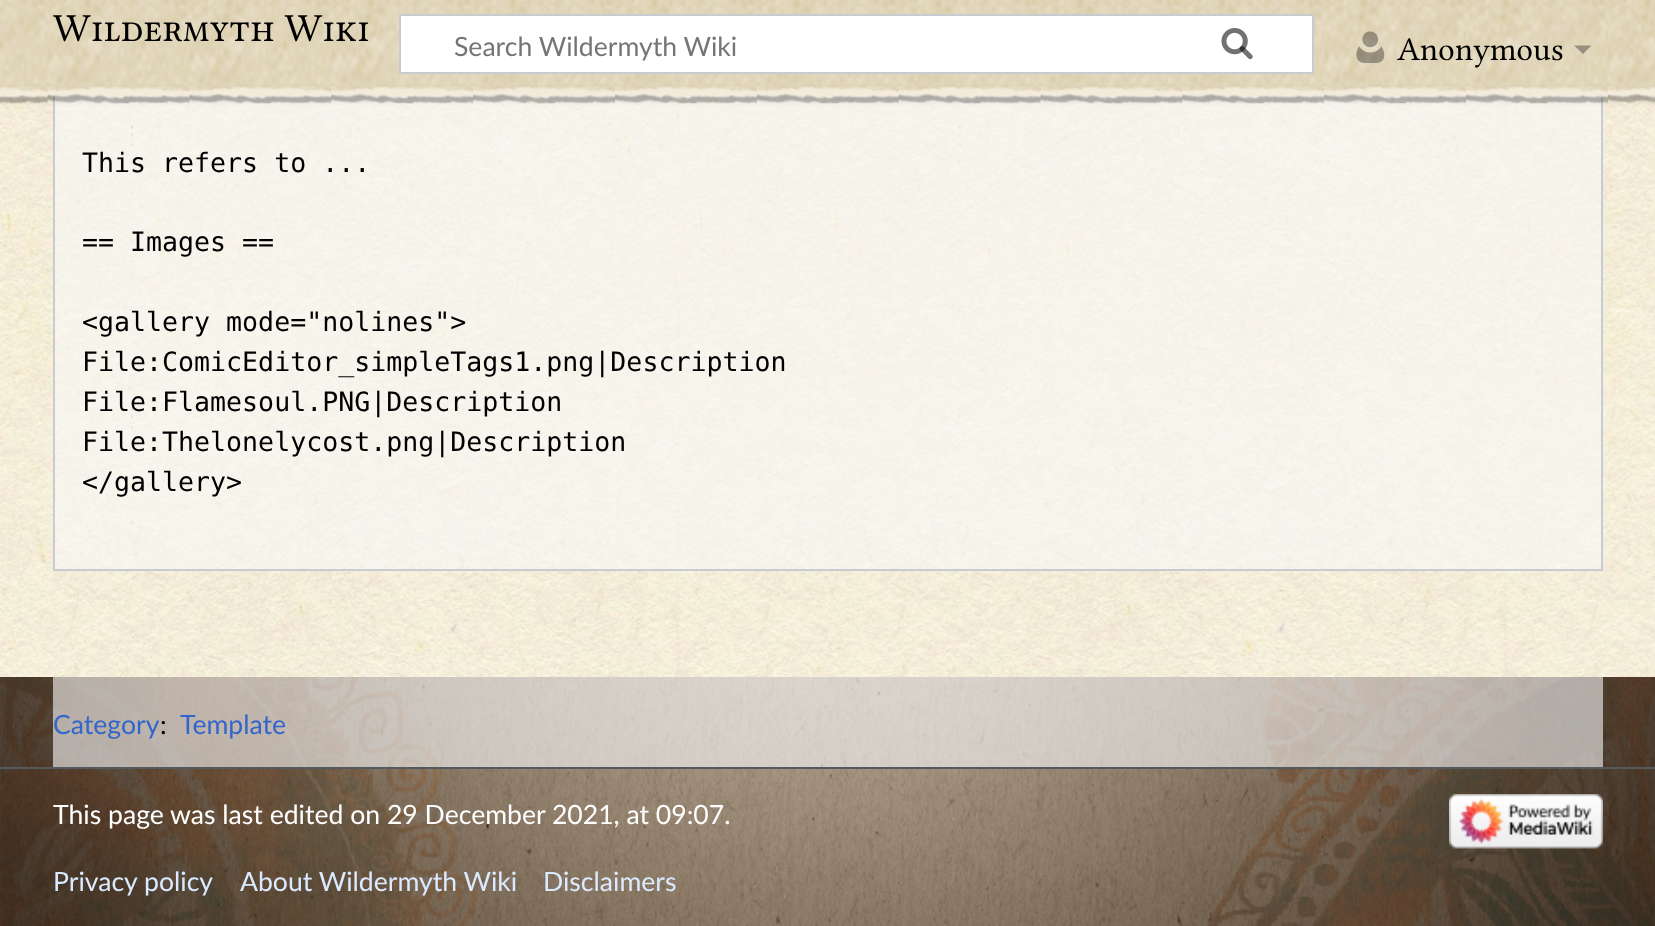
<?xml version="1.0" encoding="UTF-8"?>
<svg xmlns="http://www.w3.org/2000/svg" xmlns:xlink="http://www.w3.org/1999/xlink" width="1655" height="926">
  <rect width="100%" height="100%" fill="#ffffff" />
  <image x="0" y="99" width="1655" height="827" xlink:href="image1.png" />
  <image x="0" y="85" width="1655" height="592" xlink:href="image6.png" />
  <rect x="55" y="85" width="1546" height="484" fill="#f9f9f9" fill-opacity="0.6" />
  <rect x="54" y="-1" width="1548" height="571" fill="none" stroke="#c8ccd1" stroke-width="2" />
  <rect y="84" width="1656" height="9" fill="#000000" fill-opacity="0.2" filter="blur(2px)" />
  <rect x="-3" y="86" width="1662" height="16" fill="#000000" fill-opacity="0.07" filter="blur(2.5px)" />
  <image x="0" y="0" width="1655" height="104" xlink:href="image2.png" />
  <rect x="400" y="15" width="913" height="58" fill="#ffffff" stroke="#c8ccd1" stroke-width="2" />
  <image x="1221" y="28" width="32" height="32" xlink:href="image3.png" />
  <image x="1221" y="28" width="32" height="32" xlink:href="image4.png" />
  <image x="1356" y="31" width="29" height="32" xlink:href="image5.png" />
  <path d="M 1591.5 45.5 l -8.5 8.5 l -9 -8.5 z" fill="#000000" fill-opacity="0.33" />
  <rect x="53" y="677" width="1550" height="90" fill="#f9f9f9" fill-opacity="0.6" />
  <rect y="767" width="1655" height="2" fill="#54595d" />
  <image x="1449" y="794" width="154" height="55" xlink:href="image7.png" />
  <text x="53" y="41" style="font-family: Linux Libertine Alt; font-size: 40px; fill: #000000">Wildermyth Wiki</text>
  <text x="454" y="56" style="font-family: Lato; font-size: 26.6px; fill: #757575">Search Wildermyth Wiki</text>
  <text x="1397" y="60" style="font-family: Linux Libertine; font-size: 33.25px; fill: #000000">Anonymous</text>
  <text x="82" y="172" style="font-family: DejaVu Sans Mono; font-size: 26.6px; fill: #000000">This refers to ...</text>
  <text x="82" y="251" style="font-family: DejaVu Sans Mono; font-size: 26.6px; fill: #000000">== Images ==</text>
  <text x="82" y="331" style="font-family: DejaVu Sans Mono; font-size: 26.6px; fill: #000000">&lt;gallery mode="nolines"&gt;</text>
  <text x="82" y="371" style="font-family: DejaVu Sans Mono; font-size: 26.6px; fill: #000000">File:ComicEditor_simpleTags1.png|Description</text>
  <text x="82" y="411" style="font-family: DejaVu Sans Mono; font-size: 26.6px; fill: #000000">File:Flamesoul.PNG|Description</text>
  <text x="82" y="451" style="font-family: DejaVu Sans Mono; font-size: 26.6px; fill: #000000">File:Thelonelycost.png|Description</text>
  <text x="82" y="491" style="font-family: DejaVu Sans Mono; font-size: 26.6px; fill: #000000">&lt;/gallery&gt;</text>
  <text x="53" y="734" style="font-family: Lato; font-size: 26.6px; fill: #3366cc">Category</text>
  <text x="160" y="734" style="font-family: Lato; font-size: 26.6px; fill: #000000">:</text>
  <text x="180" y="734" style="font-family: Lato; font-size: 26.6px; fill: #3366cc">Template</text>
  <text x="53" y="824" style="font-family: Lato; font-size: 26.6px; fill: #ffffff">This page was last edited on 29 December 2021, at 09:07.</text>
  <text x="53" y="891" style="font-family: Lato; font-size: 26.6px; fill: #dbeaff">Privacy policy</text>
  <text x="240" y="891" style="font-family: Lato; font-size: 26.6px; fill: #dbeaff">About Wildermyth Wiki</text>
  <text x="543" y="891" style="font-family: Lato; font-size: 26.6px; fill: #dbeaff">Disclaimers</text>
</svg>
